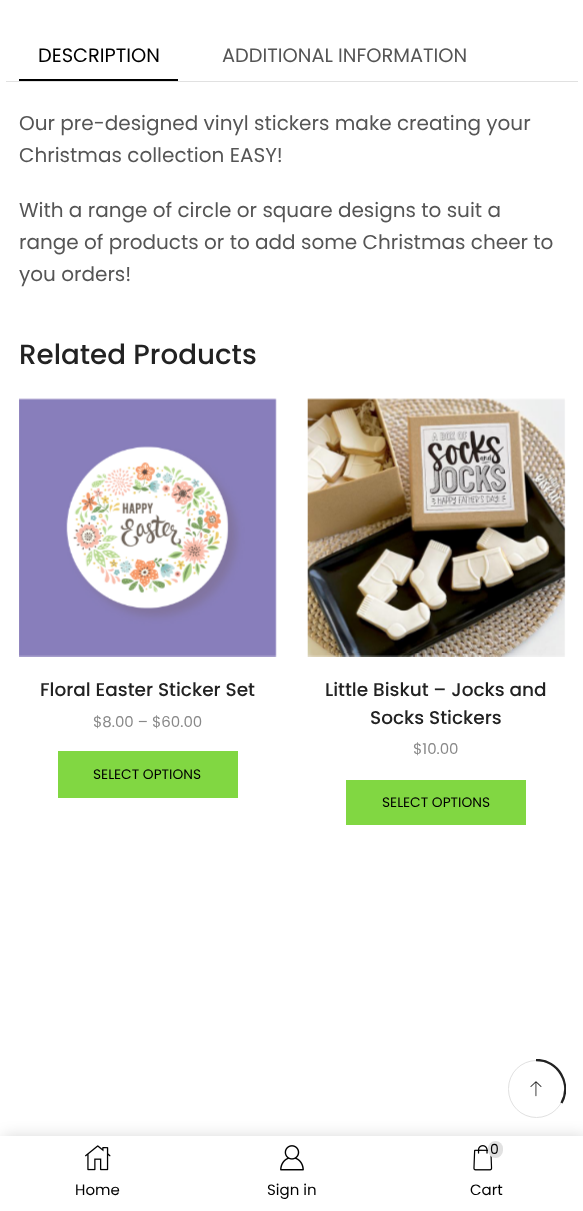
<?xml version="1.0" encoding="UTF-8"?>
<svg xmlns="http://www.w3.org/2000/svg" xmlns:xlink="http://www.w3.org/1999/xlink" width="583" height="1211">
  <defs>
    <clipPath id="clip1"><rect x="506" y="1059" width="60" height="60" /></clipPath>
  </defs>
  <rect width="100%" height="100%" fill="#ffffff" />
  <rect x="6" y="81" width="572" height="1" fill="#e1e1e1" />
  <rect x="19" y="79" width="159" height="2" fill="#000000" />
  <image x="19" y="398" width="258" height="259" xlink:href="image1.png" />
  <rect x="58" y="751" width="180" height="47" fill="#81d742" />
  <image x="307" y="398" width="259" height="259" xlink:href="image2.png" />
  <rect x="346" y="780" width="180" height="45" fill="#81d742" />
  <rect x="3" y="1136" width="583" height="75" fill="#000000" fill-opacity="0.15" filter="blur(7.5px)" />
  <rect x="508.5" y="1060.5" width="56" height="57" rx="28" fill="none" stroke="#e1e1e1" />
  <g clip-path="url(#clip1)">
    <path d="M 536 1060 c 22.5 0 36 24 25.5 43" fill="none" stroke="#222222" stroke-width="2.4" />
  </g>
  <image x="530" y="1081" width="12" height="16" xlink:href="image3.png" />
  <rect y="1136" width="583" height="75" fill="#ffffff" />
  <image x="85" y="1145" width="26" height="26" xlink:href="image4.png" />
  <image x="280" y="1145" width="24" height="26" xlink:href="image5.png" />
  <image x="473" y="1145" width="20" height="26" xlink:href="image6.png" />
  <rect x="488" y="1141" width="15" height="17" rx="7.5" fill="#e1e1e1" />
  <text x="38" y="62" style="font-family: Poppins; font-size: 19.4px; fill: #000000">DESCRIPTION</text>
  <text x="222" y="62" style="font-family: Poppins; font-size: 19.4px; fill: #555555">ADDITIONAL INFORMATION</text>
  <text x="19" y="130" style="font-family: Poppins; font-size: 20px; fill: #555555">Our pre-designed vinyl stickers make creating your</text>
  <text x="19" y="162" style="font-family: Poppins; font-size: 20px; fill: #555555">Christmas collection EASY!</text>
  <text x="19" y="217" style="font-family: Poppins; font-size: 20px; fill: #555555">With a range of circle or square designs to suit a</text>
  <text x="19" y="249" style="font-family: Poppins; font-size: 20px; fill: #555555">range of products or to add some Christmas cheer to</text>
  <text x="19" y="281" style="font-family: Poppins; font-size: 20px; fill: #555555">you orders!</text>
  <text x="19" y="364" style="font-family: Poppins; font-size: 27.75px; font-weight: 500; fill: #222222">Related Products</text>
  <text x="40" y="696" style="font-family: Poppins; font-size: 18.5px; font-weight: 500; fill: #222222">Floral Easter Sticker Set</text>
  <text x="93" y="727" style="font-family: Poppins; font-size: 15px; fill: #888888">$8.00 – $60.00</text>
  <text x="93" y="779" style="font-family: Poppins; font-size: 13.75px; fill: #000000">SELECT OPTIONS</text>
  <text x="325" y="696" style="font-family: Poppins; font-size: 18.5px; font-weight: 500; fill: #222222">Little Biskut – Jocks and</text>
  <text x="370" y="724" style="font-family: Poppins; font-size: 18.5px; font-weight: 500; fill: #222222">Socks Stickers</text>
  <text x="413" y="754" style="font-family: Poppins; font-size: 15px; fill: #888888">$10.00</text>
  <text x="382" y="807" style="font-family: Poppins; font-size: 13.75px; fill: #000000">SELECT OPTIONS</text>
  <text x="75" y="1195" style="font-family: Poppins; font-size: 15px; fill: #000000">Home</text>
  <text x="267" y="1195" style="font-family: Poppins; font-size: 15px; fill: #000000">Sign in</text>
  <text x="490" y="1154" style="font-family: Poppins; font-size: 14px; fill: #000000">0</text>
  <text x="470" y="1195" style="font-family: Poppins; font-size: 15px; fill: #000000">Cart</text>
</svg>
